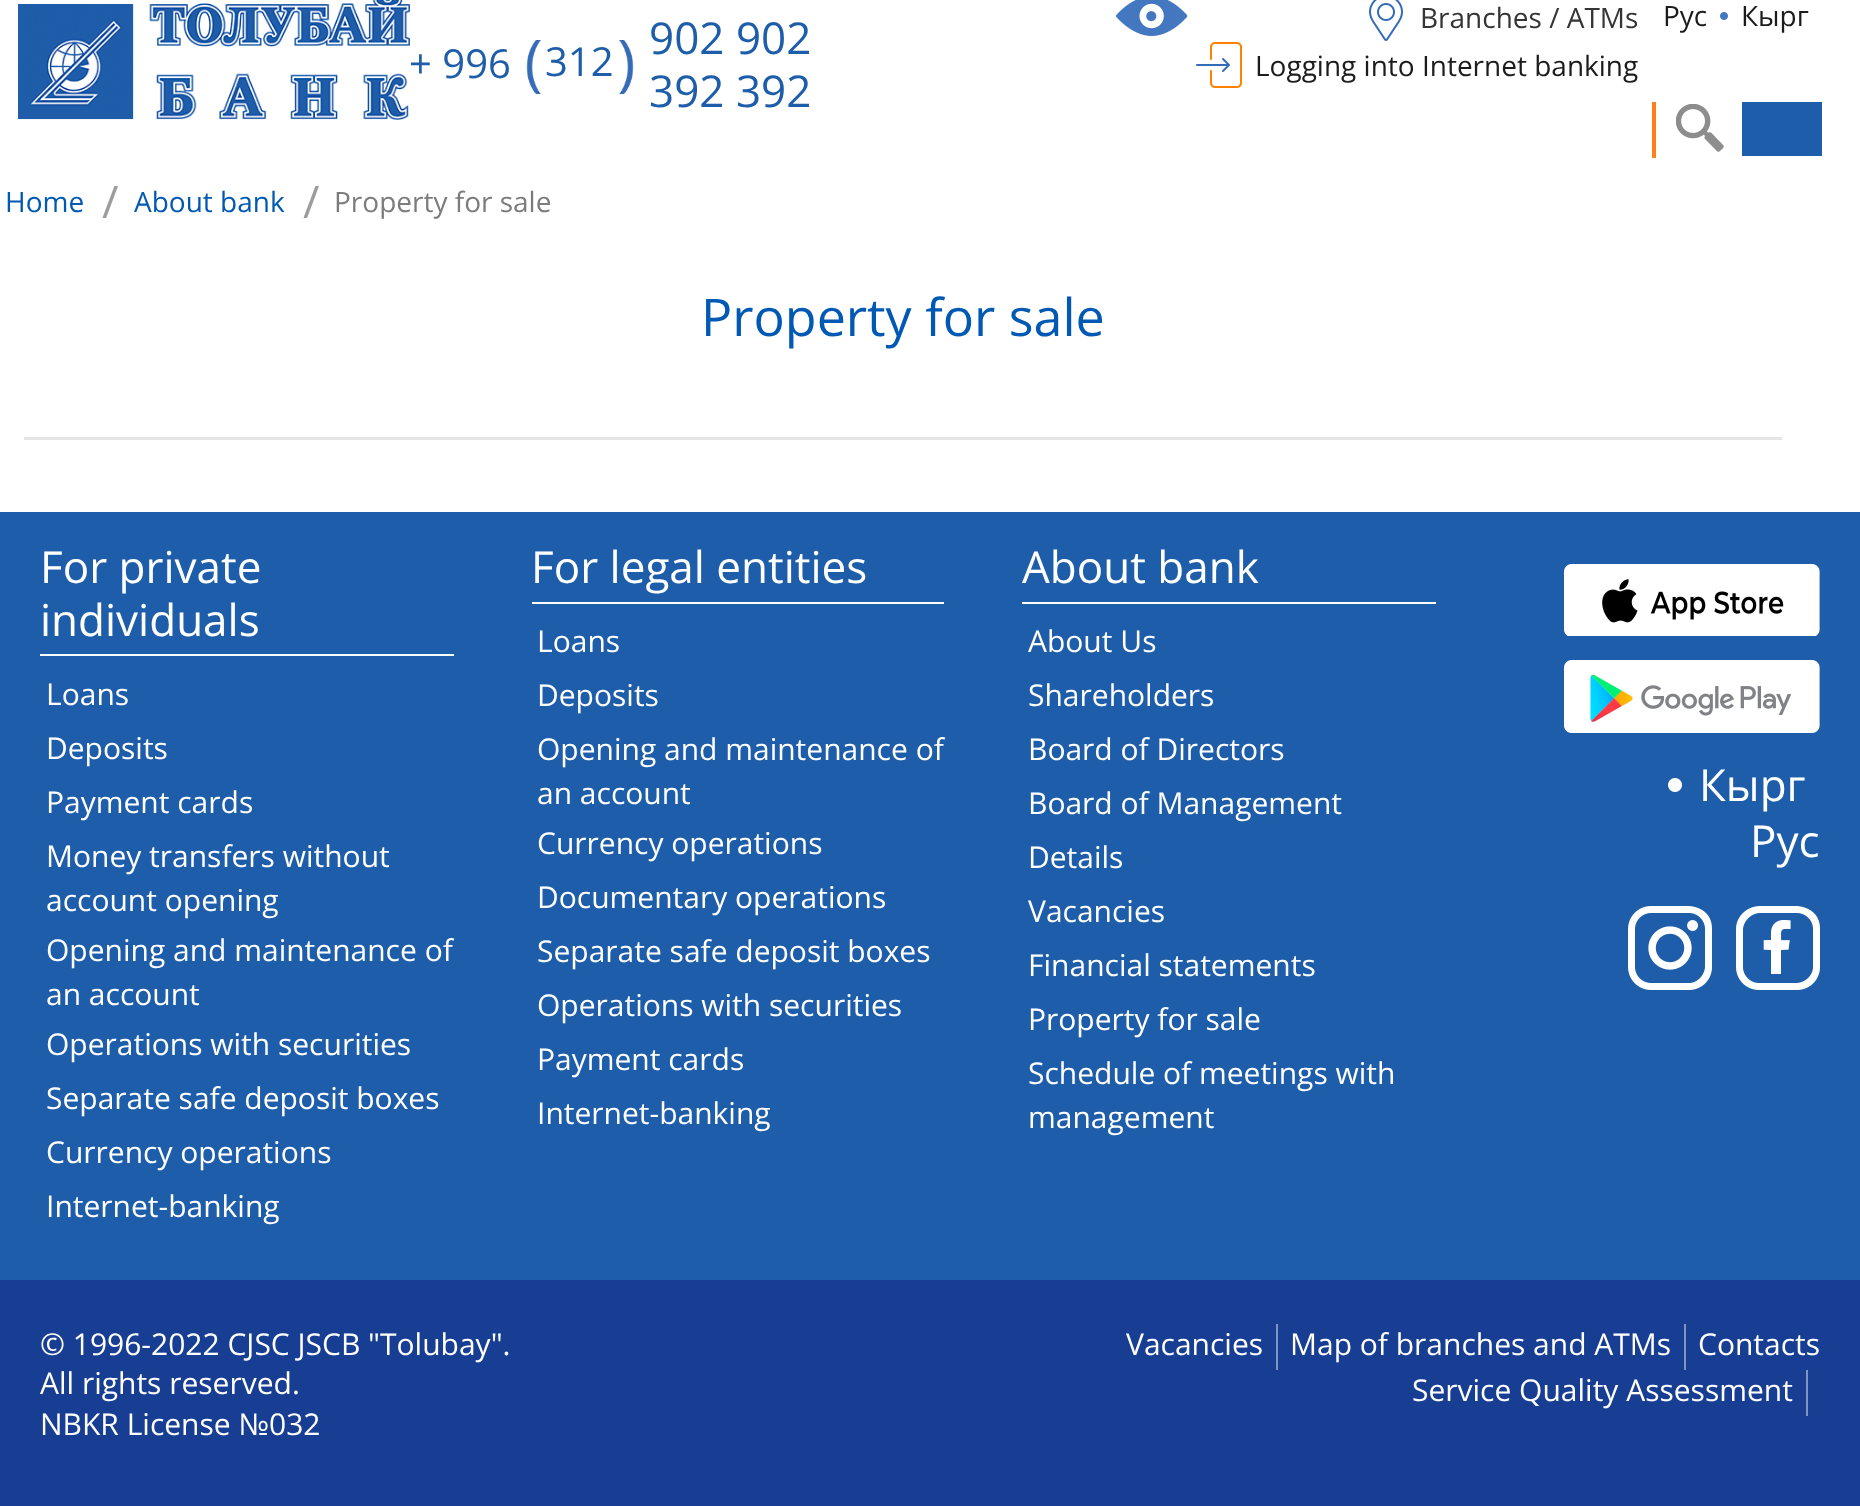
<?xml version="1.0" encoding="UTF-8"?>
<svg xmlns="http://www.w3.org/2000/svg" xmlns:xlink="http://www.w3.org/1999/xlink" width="1860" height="1506">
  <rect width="100%" height="100%" fill="#ffffff" />
  <image x="18" y="0" width="392" height="120" xlink:href="image1.png" />
  <image x="526" y="40" width="15" height="54" xlink:href="image2.png" />
  <image x="619" y="40" width="15" height="54" xlink:href="image3.png" />
  <image x="1116" y="0" width="72" height="36" xlink:href="image4.png" />
  <image x="1369" y="0" width="34" height="41" xlink:href="image5.png" />
  <image x="1196" y="42" width="46" height="46" xlink:href="image6.png" />
  <image x="1720" y="12" width="8" height="8" xlink:href="image7.png" />
  <rect x="1652" y="102" width="4" height="56" fill="#ff801a" />
  <image x="1676" y="104" width="48" height="48" xlink:href="image8.png" />
  <rect x="1742" y="102" width="80" height="54" fill="#1e5da9" />
  <rect x="24" y="437" width="1758" height="3" fill="#e6e6e6" />
  <rect y="512" width="1860" height="768" fill="#1e5da9" />
  <rect x="40" y="654" width="414" height="2" fill="#ffffff" />
  <rect x="532" y="602" width="412" height="2" fill="#ffffff" />
  <rect x="1022" y="602" width="414" height="2" fill="#ffffff" />
  <image x="1564" y="564" width="256" height="72" xlink:href="image9.png" />
  <image x="1564" y="660" width="256" height="73" xlink:href="image10.png" />
  <image x="1668" y="778" width="14" height="14" xlink:href="image11.png" />
  <image x="1628" y="906" width="84" height="84" xlink:href="image12.png" />
  <image x="1736" y="906" width="84" height="84" xlink:href="image13.png" />
  <rect y="1280" width="1860" height="226" fill="#173e92" />
  <rect x="1276" y="1324" width="2" height="46" fill="#8095c3" />
  <rect x="1684" y="1324" width="2" height="46" fill="#8095c3" />
  <rect x="1806" y="1370" width="2" height="46" fill="#8095c3" />
  <text x="409" y="78" style="font-family: Open Sans; font-size: 40px; fill: #1e5da9">+ 996</text>
  <text x="545" y="76" style="font-family: Open Sans; font-size: 40px; fill: #1e5da9">312</text>
  <text x="649" y="54" style="font-family: Open Sans; font-size: 44px; fill: #1e5da9">902 902</text>
  <text x="649" y="107" style="font-family: Open Sans; font-size: 44px; fill: #1e5da9">392 392</text>
  <text x="1420" y="28" style="font-family: Open Sans; font-size: 28px; fill: #363535">Branches / ATMs</text>
  <text x="1255" y="76" style="font-family: Open Sans; font-size: 28px; fill: #1c1c1c">Logging into Internet banking</text>
  <text x="1663" y="26" style="font-family: Open Sans; font-size: 28px; fill: #1c1c1c">Рус</text>
  <text x="1741" y="26" style="font-family: Open Sans; font-size: 28px; fill: #1c1c1c">Кырг</text>
  <text x="5" y="212" style="font-family: Open Sans; font-size: 28px; fill: #0159b3">Home</text>
  <text x="102" y="218" style="font-family: Open Sans; font-size: 45px; fill: #9c9c9c">/</text>
  <text x="134" y="212" style="font-family: Open Sans; font-size: 28px; fill: #0159b3">About bank</text>
  <text x="303" y="218" style="font-family: Open Sans; font-size: 45px; fill: #9c9c9c">/</text>
  <text x="334" y="212" style="font-family: Open Sans; font-size: 28px; fill: #7c7c7c">Property for sale</text>
  <text x="701" y="336" style="font-family: Open Sans; font-size: 52px; fill: #0159b3">Property for sale</text>
  <text x="40" y="583" style="font-family: Open Sans; font-size: 44px; fill: #ffffff">For private</text>
  <text x="40" y="636" style="font-family: Open Sans; font-size: 44px; fill: #ffffff">individuals</text>
  <text x="46" y="705" style="font-family: Open Sans; font-size: 30px; fill: #ffffff">Loans</text>
  <text x="46" y="759" style="font-family: Open Sans; font-size: 30px; fill: #ffffff">Deposits</text>
  <text x="46" y="813" style="font-family: Open Sans; font-size: 30px; fill: #ffffff">Payment cards</text>
  <text x="46" y="867" style="font-family: Open Sans; font-size: 30px; fill: #ffffff">Money transfers without</text>
  <text x="46" y="911" style="font-family: Open Sans; font-size: 30px; fill: #ffffff">account opening</text>
  <text x="46" y="961" style="font-family: Open Sans; font-size: 30px; fill: #ffffff">Opening and maintenance of</text>
  <text x="46" y="1005" style="font-family: Open Sans; font-size: 30px; fill: #ffffff">an account</text>
  <text x="46" y="1055" style="font-family: Open Sans; font-size: 30px; fill: #ffffff">Operations with securities</text>
  <text x="46" y="1109" style="font-family: Open Sans; font-size: 30px; fill: #ffffff">Separate safe deposit boxes</text>
  <text x="46" y="1163" style="font-family: Open Sans; font-size: 30px; fill: #ffffff">Currency operations</text>
  <text x="46" y="1217" style="font-family: Open Sans; font-size: 30px; fill: #ffffff">Internet-banking</text>
  <text x="531" y="583" style="font-family: Open Sans; font-size: 44px; fill: #ffffff">For legal entities</text>
  <text x="537" y="652" style="font-family: Open Sans; font-size: 30px; fill: #ffffff">Loans</text>
  <text x="537" y="706" style="font-family: Open Sans; font-size: 30px; fill: #ffffff">Deposits</text>
  <text x="537" y="760" style="font-family: Open Sans; font-size: 30px; fill: #ffffff">Opening and maintenance of</text>
  <text x="537" y="804" style="font-family: Open Sans; font-size: 30px; fill: #ffffff">an account</text>
  <text x="537" y="854" style="font-family: Open Sans; font-size: 30px; fill: #ffffff">Currency operations</text>
  <text x="537" y="908" style="font-family: Open Sans; font-size: 30px; fill: #ffffff">Documentary operations</text>
  <text x="537" y="962" style="font-family: Open Sans; font-size: 30px; fill: #ffffff">Separate safe deposit boxes</text>
  <text x="537" y="1016" style="font-family: Open Sans; font-size: 30px; fill: #ffffff">Operations with securities</text>
  <text x="537" y="1070" style="font-family: Open Sans; font-size: 30px; fill: #ffffff">Payment cards</text>
  <text x="537" y="1124" style="font-family: Open Sans; font-size: 30px; fill: #ffffff">Internet-banking</text>
  <text x="1022" y="583" style="font-family: Open Sans; font-size: 44px; fill: #ffffff">About bank</text>
  <text x="1028" y="652" style="font-family: Open Sans; font-size: 30px; fill: #ffffff">About Us</text>
  <text x="1028" y="706" style="font-family: Open Sans; font-size: 30px; fill: #ffffff">Shareholders</text>
  <text x="1028" y="760" style="font-family: Open Sans; font-size: 30px; fill: #ffffff">Board of Directors</text>
  <text x="1028" y="814" style="font-family: Open Sans; font-size: 30px; fill: #ffffff">Board of Management</text>
  <text x="1028" y="868" style="font-family: Open Sans; font-size: 30px; fill: #ffffff">Details</text>
  <text x="1028" y="922" style="font-family: Open Sans; font-size: 30px; fill: #ffffff">Vacancies</text>
  <text x="1028" y="976" style="font-family: Open Sans; font-size: 30px; fill: #ffffff">Financial statements</text>
  <text x="1028" y="1030" style="font-family: Open Sans; font-size: 30px; fill: #ffffff">Property for sale</text>
  <text x="1028" y="1084" style="font-family: Open Sans; font-size: 30px; fill: #ffffff">Schedule of meetings with</text>
  <text x="1028" y="1128" style="font-family: Open Sans; font-size: 30px; fill: #ffffff">management</text>
  <text x="1699" y="801" style="font-family: Open Sans; font-size: 44px; fill: #ffffff">Кырг</text>
  <text x="1750" y="857" style="font-family: Open Sans; font-size: 44px; fill: #ffffff">Рус</text>
  <text x="40" y="1355" style="font-family: Open Sans; font-size: 30px; fill: #ffffff">© 1996-2022 CJSC JSCB "Tolubay".</text>
  <text x="40" y="1394" style="font-family: Open Sans; font-size: 30px; fill: #ffffff">All rights reserved.</text>
  <text x="40" y="1435" style="font-family: Open Sans; font-size: 30px; fill: #ffffff">NBKR License №032</text>
  <text x="1126" y="1355" style="font-family: Open Sans; font-size: 30px; fill: #ffffff">Vacancies</text>
  <text x="1290" y="1355" style="font-family: Open Sans; font-size: 30px; fill: #ffffff">Map of branches and ATMs</text>
  <text x="1698" y="1355" style="font-family: Open Sans; font-size: 30px; fill: #ffffff">Contacts</text>
  <text x="1412" y="1401" style="font-family: Open Sans; font-size: 30px; fill: #ffffff">Service Quality Assessment</text>
</svg>
